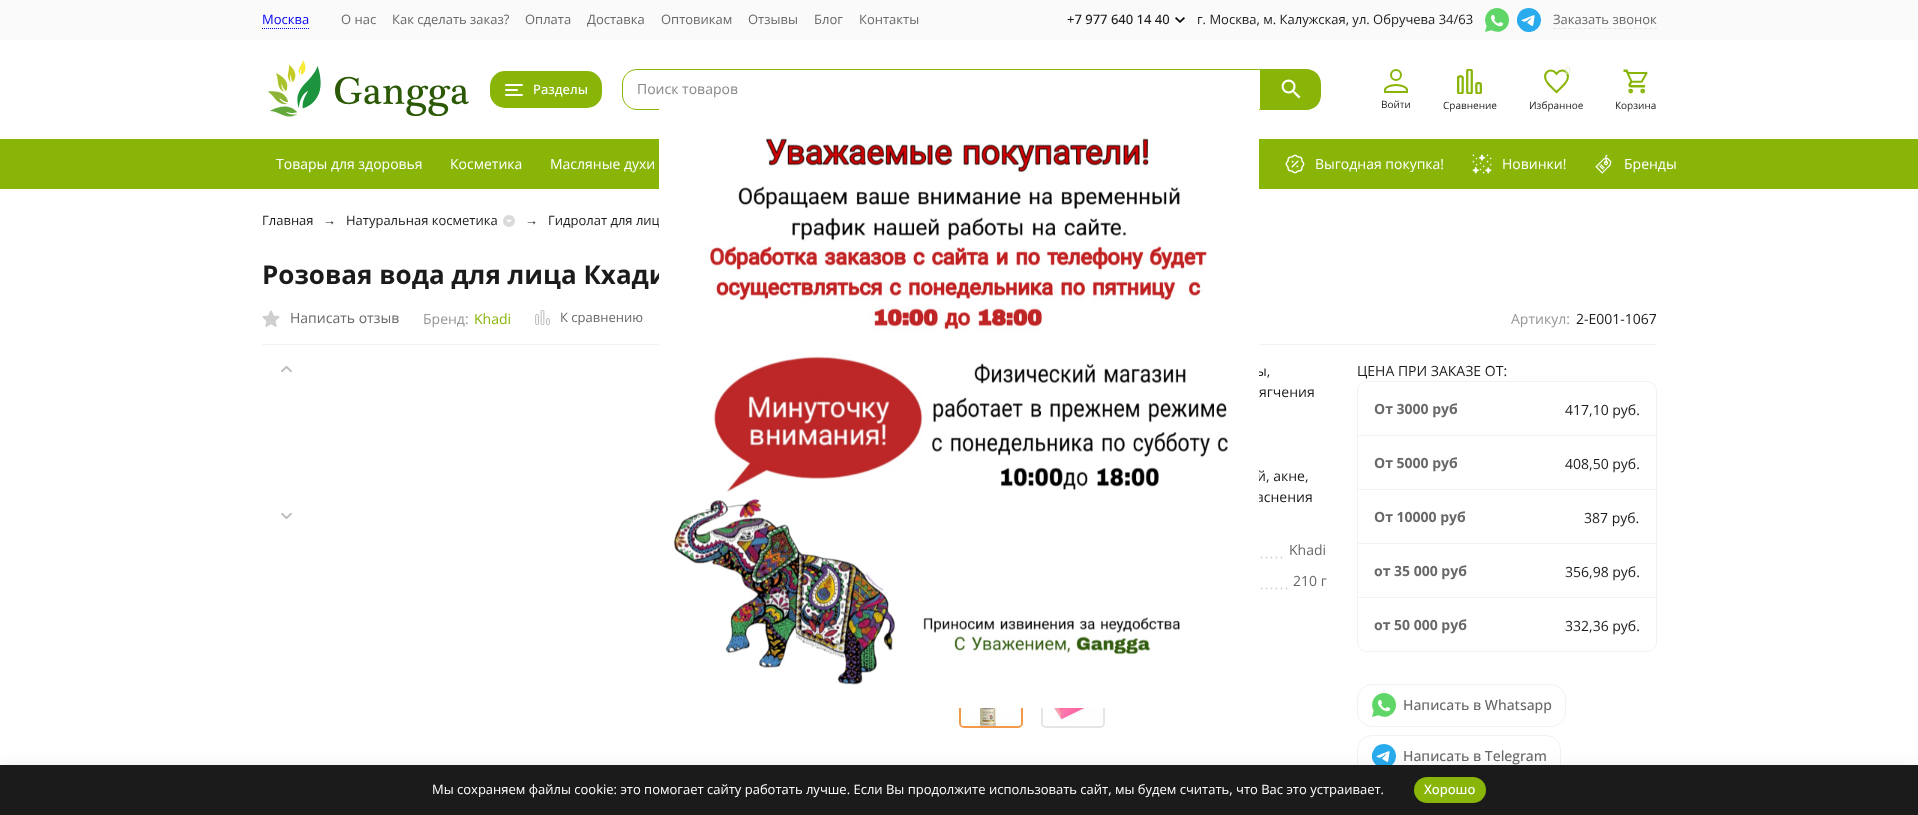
<?xml version="1.0" encoding="UTF-8"?>
<svg xmlns="http://www.w3.org/2000/svg" xmlns:xlink="http://www.w3.org/1999/xlink" width="1918" height="815">
  <defs>
    <clipPath id="clip1"><rect x="1315" y="156" width="129" height="16" /></clipPath>
  </defs>
  <rect width="100%" height="100%" fill="#ffffff" />
  <rect width="1918" height="40" fill="#fafafa" />
  <path d="M 262 28.5 h 47" fill="none" stroke="#0000ee" stroke-dasharray="1 1" />
  <image x="1175" y="17" width="10" height="6" xlink:href="image1.png" />
  <image x="1485" y="8" width="24" height="24" xlink:href="image2.png" />
  <image x="1517" y="8" width="24" height="24" xlink:href="image3.png" />
  <path d="M 1553 28.5 h 104" fill="none" stroke="#e5e5e5" stroke-dasharray="3 2.05" />
  <image x="267" y="60" width="202" height="57" xlink:href="image4.png" />
  <rect x="490" y="71" width="112" height="37" rx="15" fill="#88b508" />
  <rect x="505" y="84" width="18" height="2" rx="1" fill="#ffffff" />
  <rect x="505" y="89" width="13" height="2" rx="1" fill="#ffffff" />
  <rect x="505" y="94" width="18" height="2" rx="1" fill="#ffffff" />
  <path d="M 637 69.5 h 623.5 v 40 h -623.5 c -8 0 -14.5 -6.5 -14.5 -14.5 v -11 c 0 -8 6.5 -14.5 14.5 -14.5 z" fill="none" stroke="#88b508" />
  <path d="M 1261 69 h 45 c 8.5 0 15 6.5 15 15 v 11 c 0 8.5 -6.5 15 -15 15 h -45 z" fill="#88b508" />
  <image x="1281" y="79" width="20" height="20" xlink:href="image5.png" />
  <image x="1384" y="69" width="24" height="24" xlink:href="image6.png" />
  <image x="1457" y="69" width="25" height="25" xlink:href="image7.png" />
  <image x="1544" y="69" width="25" height="25" xlink:href="image8.png" />
  <image x="1623" y="69" width="25" height="25" xlink:href="image9.png" />
  <rect y="139" width="1918" height="50" fill="#88b508" />
  <image x="1285" y="154" width="20" height="20" xlink:href="image10.png" />
  <image x="1472" y="154" width="20" height="20" xlink:href="image11.png" />
  <image x="1595" y="154" width="17" height="20" xlink:href="image12.png" />
  <image x="503" y="215" width="12" height="12" xlink:href="image13.png" />
  <rect x="262" y="344" width="1395" height="1" fill="#f2f2f2" />
  <image x="262" y="310" width="18" height="17" xlink:href="image14.png" />
  <image x="535" y="310" width="15" height="15" xlink:href="image15.png" />
  <image x="281" y="366" width="11" height="6" xlink:href="image16.png" />
  <image x="281" y="513" width="11" height="6" xlink:href="image17.png" />
  <path d="M 961.5 557.5 h 320.2" fill="none" stroke="#cfcfcf" stroke-width="1.8" stroke-linecap="round" stroke-dasharray="0 5" />
  <path d="M 961.5 588.5 h 325.2" fill="none" stroke="#cfcfcf" stroke-width="1.8" stroke-linecap="round" stroke-dasharray="0 5" />
  <rect x="960" y="665" width="62" height="62" rx="4" fill="none" stroke="#f2994a" stroke-width="2" />
  <image x="961" y="707" width="60" height="19" xlink:href="image18.png" />
  <rect x="1042" y="665" width="62" height="62" rx="4" fill="none" stroke="#e5e5e5" stroke-width="2" />
  <image x="1043" y="707" width="60" height="19" xlink:href="image19.png" />
  <rect x="1357.5" y="381.5" width="299" height="270" rx="9.5" fill="none" stroke="#f2f2f2" />
  <rect x="1358" y="435" width="298" height="1" fill="#f2f2f2" />
  <rect x="1358" y="489" width="298" height="1" fill="#f2f2f2" />
  <rect x="1358" y="543" width="298" height="1" fill="#f2f2f2" />
  <rect x="1358" y="597" width="298" height="1" fill="#f2f2f2" />
  <rect x="1357.5" y="684.5" width="208" height="42" rx="14.5" fill="none" stroke="#f2f2f2" />
  <image x="1372" y="693" width="24" height="24" xlink:href="image20.png" />
  <rect x="1357.5" y="735.5" width="203" height="42" rx="14.5" fill="none" stroke="#f2f2f2" />
  <image x="1372" y="744" width="24" height="21" xlink:href="image21.png" />
  <rect y="765" width="1918" height="50" fill="#000000" fill-opacity="0.07" filter="blur(7.5px)" />
  <rect y="765" width="1918" height="50" fill="#1b1b1b" />
  <rect x="1414" y="777" width="72" height="26" rx="13" fill="#88b508" />
  <text x="262" y="24" style="font-family: Open Sans; font-size: 13px; fill: #0000ee">Москва</text>
  <text x="341" y="24" style="font-family: Open Sans; font-size: 13px; fill: #686868">О нас</text>
  <text x="392" y="24" style="font-family: Open Sans; font-size: 13px; fill: #686868">Как сделать заказ?</text>
  <text x="525" y="24" style="font-family: Open Sans; font-size: 13px; fill: #686868">Оплата</text>
  <text x="587" y="24" style="font-family: Open Sans; font-size: 13px; fill: #686868">Доставка</text>
  <text x="661" y="24" style="font-family: Open Sans; font-size: 13px; fill: #686868">Оптовикам</text>
  <text x="748" y="24" style="font-family: Open Sans; font-size: 13px; fill: #686868">Отзывы</text>
  <text x="814" y="24" style="font-family: Open Sans; font-size: 13px; fill: #686868">Блог</text>
  <text x="859" y="24" style="font-family: Open Sans; font-size: 13px; fill: #686868">Контакты</text>
  <text x="1067" y="24" style="font-family: Open Sans; font-size: 13px; font-weight: 500; fill: #1b1b1b">+7 977 640 14 40</text>
  <text x="1197" y="24" style="font-family: Open Sans; font-size: 13px; fill: #1b1b1b">г. Москва, м. Калужская, ул. Обручева 34/63</text>
  <text x="1553" y="24" style="font-family: Open Sans; font-size: 13px; fill: #686868">Заказать звонок</text>
  <text x="533" y="94" style="font-family: Open Sans; font-size: 13px; font-weight: 500; fill: #ffffff">Разделы</text>
  <text x="637" y="94" style="font-family: Open Sans; font-size: 14px; fill: #888888">Поиск товаров</text>
  <text x="1381" y="108" style="font-family: Open Sans; font-size: 10px; fill: #1b1b1b">Войти</text>
  <text x="1443" y="109" style="font-family: Open Sans; font-size: 10px; fill: #1b1b1b">Сравнение</text>
  <text x="1565" y="74" style="font-family: Open Sans; font-size: 10px; fill: #e2edc3">0</text>
  <text x="1529" y="109" style="font-family: Open Sans; font-size: 10px; fill: #1b1b1b">Избранное</text>
  <text x="1615" y="109" style="font-family: Open Sans; font-size: 10px; fill: #1b1b1b">Корзина</text>
  <text x="276" y="169" style="font-family: Open Sans; font-size: 14px; fill: #ffffff">Товары для здоровья</text>
  <text x="450" y="169" style="font-family: Open Sans; font-size: 14px; fill: #ffffff">Косметика</text>
  <text x="550" y="169" style="font-family: Open Sans; font-size: 14px; fill: #ffffff">Масляные духи</text>
  <g clip-path="url(#clip1)">
    <text x="1315" y="169" style="font-family: Open Sans; font-size: 14px; fill: #ffffff">Выгодная покупка!</text>
  </g>
  <text x="1502" y="169" style="font-family: Open Sans; font-size: 14px; fill: #ffffff">Новинки!</text>
  <text x="1624" y="169" style="font-family: Open Sans; font-size: 14px; fill: #ffffff">Бренды</text>
  <text x="262" y="225" style="font-family: Open Sans; font-size: 13px; fill: #1b1b1b">Главная</text>
  <text x="323" y="225" style="font-family: Liberation Sans; font-size: 13px; fill: #1b1b1b">→</text>
  <text x="346" y="225" style="font-family: Open Sans; font-size: 13px; fill: #1b1b1b">Натуральная косметика</text>
  <text x="525" y="225" style="font-family: Liberation Sans; font-size: 13px; fill: #1b1b1b">→</text>
  <text x="548" y="225" style="font-family: Open Sans; font-size: 13px; fill: #1b1b1b">Гидролат для лиц</text>
  <text x="262" y="284" style="font-family: Open Sans; font-size: 26px; font-weight: bold; fill: #1b1b1b">Розовая вода для лица Кхади</text>
  <text x="290" y="323" style="font-family: Open Sans; font-size: 14px; fill: #686868">Написать отзыв</text>
  <text x="423" y="324" style="font-family: Open Sans; font-size: 14px; fill: #979797">Бренд:</text>
  <text x="474" y="324" style="font-family: Open Sans; font-size: 14px; fill: #88b508">Khadi</text>
  <text x="560" y="322" style="font-family: Open Sans; font-size: 13px; fill: #686868">К сравнению</text>
  <text x="1511" y="324" style="font-family: Open Sans; font-size: 14px; fill: #979797">Артикул:</text>
  <text x="1576" y="324" style="font-family: Open Sans; font-size: 14px; fill: #1b1b1b">2-E001-1067</text>
  <text x="1256" y="376" style="font-family: Open Sans; font-size: 14px; fill: #1b1b1b">ы,</text>
  <text x="1259" y="397" style="font-family: Open Sans; font-size: 14px; fill: #1b1b1b">ягчения</text>
  <text x="1257" y="481" style="font-family: Open Sans; font-size: 14px; fill: #1b1b1b">й, акне,</text>
  <text x="1256" y="502" style="font-family: Open Sans; font-size: 14px; fill: #1b1b1b">аснения</text>
  <text x="1289" y="555" style="font-family: Open Sans; font-size: 14px; fill: #686868">Khadi</text>
  <text x="1293" y="586" style="font-family: Open Sans; font-size: 14px; fill: #686868">210 г</text>
  <text x="1357" y="376" style="font-family: Open Sans; font-size: 14px; fill: #1b1b1b">ЦЕНА ПРИ ЗАКАЗЕ ОТ:</text>
  <text x="1374" y="414" style="font-family: Open Sans; font-size: 14px; font-weight: bold; fill: #686868">От 3000 руб</text>
  <text x="1565" y="415" style="font-family: Open Sans; font-size: 14px; fill: #1b1b1b">417,10 руб.</text>
  <text x="1374" y="468" style="font-family: Open Sans; font-size: 14px; font-weight: bold; fill: #686868">От 5000 руб</text>
  <text x="1565" y="469" style="font-family: Open Sans; font-size: 14px; fill: #1b1b1b">408,50 руб.</text>
  <text x="1374" y="522" style="font-family: Open Sans; font-size: 14px; font-weight: bold; fill: #686868">От 10000 руб</text>
  <text x="1584" y="523" style="font-family: Open Sans; font-size: 14px; fill: #1b1b1b">387 руб.</text>
  <text x="1374" y="576" style="font-family: Open Sans; font-size: 14px; font-weight: bold; fill: #686868">от 35 000 руб</text>
  <text x="1565" y="577" style="font-family: Open Sans; font-size: 14px; fill: #1b1b1b">356,98 руб.</text>
  <text x="1374" y="630" style="font-family: Open Sans; font-size: 14px; font-weight: bold; fill: #686868">от 50 000 руб</text>
  <text x="1565" y="631" style="font-family: Open Sans; font-size: 14px; fill: #1b1b1b">332,36 руб.</text>
  <text x="1403" y="710" style="font-family: Open Sans; font-size: 14px; font-weight: 500; fill: #686868">Написать в Whatsapp</text>
  <text x="1403" y="761" style="font-family: Open Sans; font-size: 14px; font-weight: 500; fill: #686868">Написать в Telegram</text>
  <image x="659" y="109" width="600" height="599" xlink:href="image22.png" />
  <rect x="959" y="707" width="127" height="1" fill="#ffffff" fill-opacity="0.91" />
  <text x="432" y="794" style="font-family: Open Sans; font-size: 13px; fill: #ffffff">Мы сохраняем файлы cookie: это помогает сайту работать лучше. Если Вы продолжите использовать сайт, мы будем считать, что Вас это устраивает.</text>
  <text x="1424" y="794" style="font-family: Open Sans; font-size: 13px; font-weight: 500; fill: #ffffff">Хорошо</text>
</svg>
